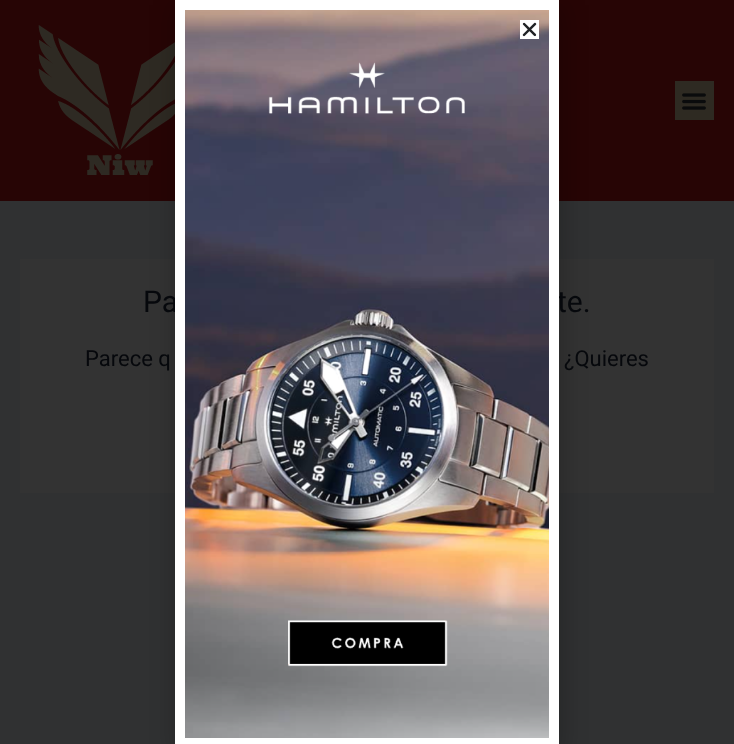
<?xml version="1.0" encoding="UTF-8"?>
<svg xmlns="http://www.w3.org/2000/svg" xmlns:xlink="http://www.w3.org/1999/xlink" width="734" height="744">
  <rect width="100%" height="100%" fill="#303132" />
  <rect width="734" height="201" fill="#270505" />
  <image x="38" y="25" width="137" height="150" xlink:href="image3.png" />
  <rect x="20" y="259" width="694" height="234" fill="#333333" />
  <rect x="174" y="5" width="390" height="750" fill="#000000" fill-opacity="0.2" filter="blur(11.5px)" />
  <rect x="675" y="81" width="39" height="39" fill="#2e2a22" />
  <image x="682" y="93" width="24" height="17" xlink:href="image4.png" />
  <text x="143" y="312" style="font-family: Roboto; font-size: 30px; fill: #06080c">Pa</text>
  <text x="557" y="312" style="font-family: Roboto; font-size: 30px; fill: #06080c">te.</text>
  <rect x="175" width="384" height="744" fill="#ffffff" />
  <image x="185" y="10" width="364" height="728" xlink:href="image1.png" />
  <rect x="520" y="20" width="19" height="19" fill="#ffffff" />
  <image x="522" y="22" width="15" height="15" xlink:href="image2.png" />
  <text x="85" y="366" style="font-family: Roboto; font-size: 22px; fill: #06080c">Parece q</text>
  <text x="564" y="366" style="font-family: Roboto; font-size: 22px; fill: #06080c">¿Quieres</text>
</svg>
